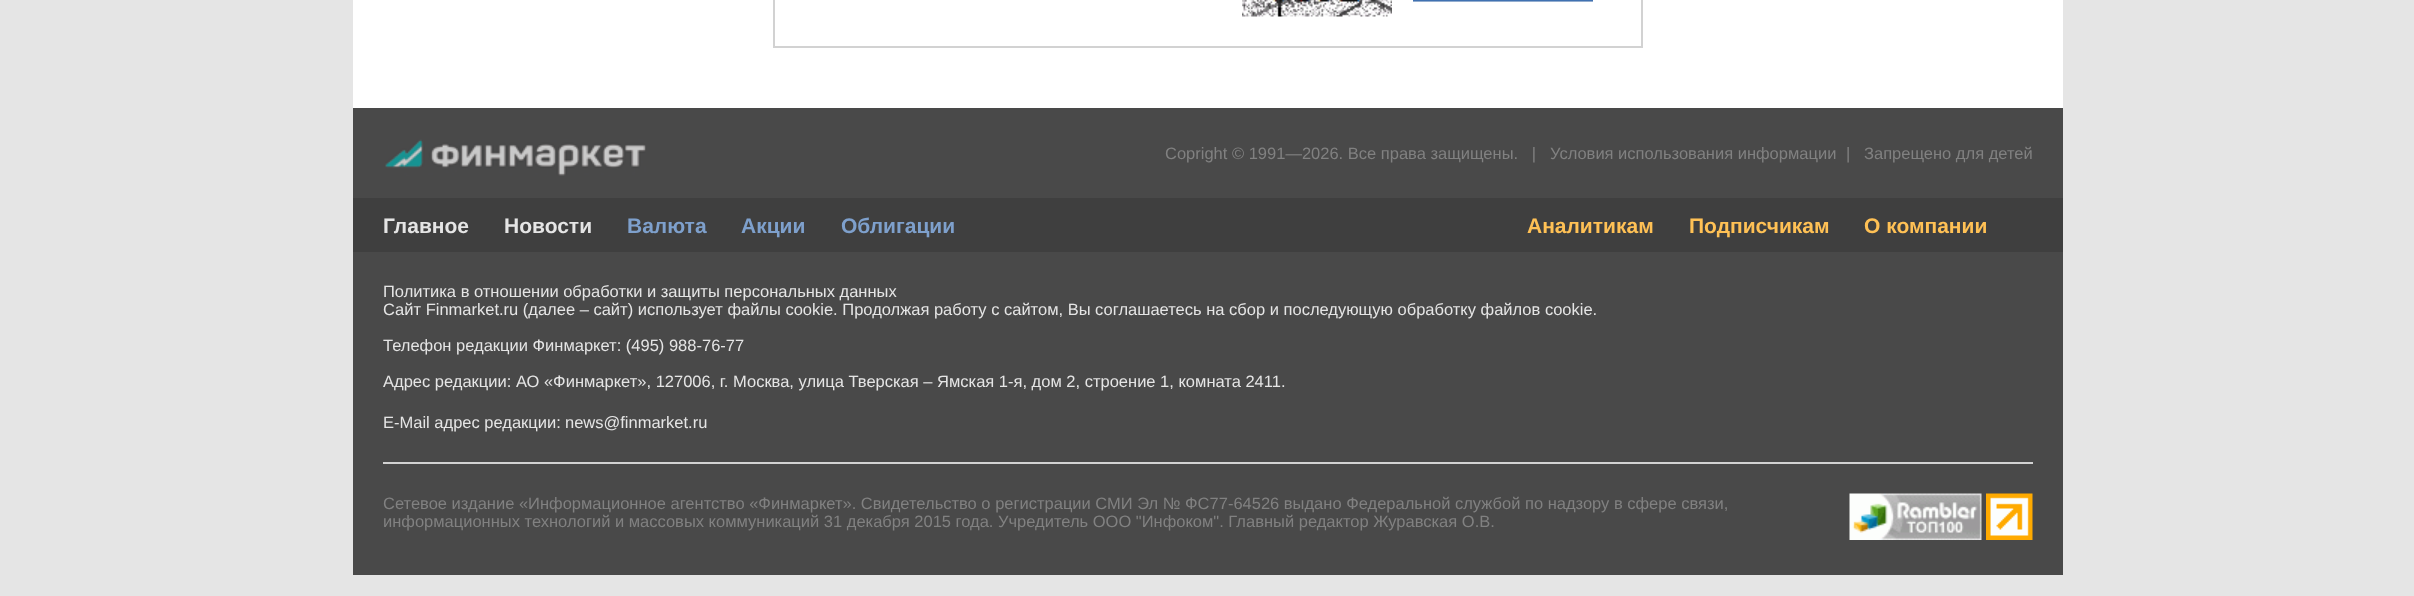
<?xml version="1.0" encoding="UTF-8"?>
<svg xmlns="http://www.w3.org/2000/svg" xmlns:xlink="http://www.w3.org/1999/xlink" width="2414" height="596">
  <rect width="100%" height="100%" fill="#e5e5e5" />
  <rect x="353" width="1710" height="108" fill="#ffffff" />
  <rect x="774" y="-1" width="868" height="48" fill="none" stroke="#d2d2d2" stroke-width="2" />
  <image x="1242" y="0" width="150" height="17" xlink:href="image1.png" />
  <rect x="1413" y="1" width="180" height="1" fill="#efefef" />
  <image x="1413" y="0" width="180" height="2" xlink:href="image2.png" />
  <rect x="353" y="108" width="1710" height="467" fill="#494949" />
  <image x="385" y="139" width="261" height="37" xlink:href="image3.png" />
  <rect x="353" y="198" width="1710" height="54" fill="#3f3f3f" />
  <rect x="383" y="462" width="1650" height="2" fill="#d2d2d2" />
  <image x="1849" y="493" width="133" height="47" xlink:href="image4.png" />
  <image x="1986" y="493" width="47" height="47" xlink:href="image5.png" />
  <text x="1165" y="159" style="font-family: Liberation Sans; font-size: 16.5px; fill: #818181" xml:space="preserve">Copright © 1991—2026. Все права защищены.   |</text>
  <text x="1550" y="159" style="font-family: Liberation Sans; font-size: 16.5px; fill: #818181">Условия использования информации</text>
  <text x="1846" y="159" style="font-family: Liberation Sans; font-size: 16.5px; fill: #818181">|</text>
  <text x="1864" y="159" style="font-family: Liberation Sans; font-size: 16.5px; fill: #818181">Запрещено для детей</text>
  <text x="383" y="233" style="font-family: Liberation Sans; font-size: 21px; font-weight: bold; fill: #e5e5e5">Главное</text>
  <text x="504" y="233" style="font-family: Liberation Sans; font-size: 21px; font-weight: bold; fill: #e5e5e5">Новости</text>
  <text x="627" y="233" style="font-family: Liberation Sans; font-size: 21px; font-weight: bold; fill: #7ea0cc">Валюта</text>
  <text x="741" y="233" style="font-family: Liberation Sans; font-size: 21px; font-weight: bold; fill: #7ea0cc">Акции</text>
  <text x="841" y="233" style="font-family: Liberation Sans; font-size: 21px; font-weight: bold; fill: #7ea0cc">Облигации</text>
  <text x="1527" y="233" style="font-family: Liberation Sans; font-size: 21px; font-weight: bold; fill: #ffc155">Аналитикам</text>
  <text x="1689" y="233" style="font-family: Liberation Sans; font-size: 21px; font-weight: bold; fill: #ffc155">Подписчикам</text>
  <text x="1864" y="233" style="font-family: Liberation Sans; font-size: 21px; font-weight: bold; fill: #ffc155">О компании</text>
  <text x="383" y="297" style="font-family: Liberation Sans; font-size: 16.5px; fill: #e5e5e5">Политика в отношении обработки и защиты персональных данных</text>
  <text x="383" y="315" style="font-family: Liberation Sans; font-size: 16.5px; fill: #e5e5e5">Сайт Finmarket.ru (далее – сайт) использует файлы cookie. Продолжая работу с сайтом, Вы соглашаетесь на сбор и последующую обработку файлов cookie.</text>
  <text x="383" y="351" style="font-family: Liberation Sans; font-size: 16.5px; fill: #e5e5e5">Телефон редакции Финмаркет: (495) 988-76-77</text>
  <text x="383" y="387" style="font-family: Liberation Sans; font-size: 16.5px; fill: #e5e5e5">Адрес редакции: АО «Финмаркет», 127006, г. Москва, улица Тверская – Ямская 1-я, дом 2, строение 1, комната 2411.</text>
  <text x="383" y="428" style="font-family: Liberation Sans; font-size: 16.5px; fill: #e5e5e5">E-Mail адрес редакции:</text>
  <text x="565" y="428" style="font-family: Liberation Sans; font-size: 16.5px; fill: #e5e5e5">news@finmarket.ru</text>
  <text x="383" y="509" style="font-family: Liberation Sans; font-size: 16.5px; fill: #818181">Сетевое издание «Информационное агентство «Финмаркет». Свидетельство о регистрации СМИ Эл № ФС77-64526 выдано Федеральной службой по надзору в сфере связи,</text>
  <text x="383" y="527" style="font-family: Liberation Sans; font-size: 16.5px; fill: #818181">информационных технологий и массовых коммуникаций 31 декабря 2015 года. Учредитель ООО "Инфоком". Главный редактор Журавская О.В.</text>
</svg>
